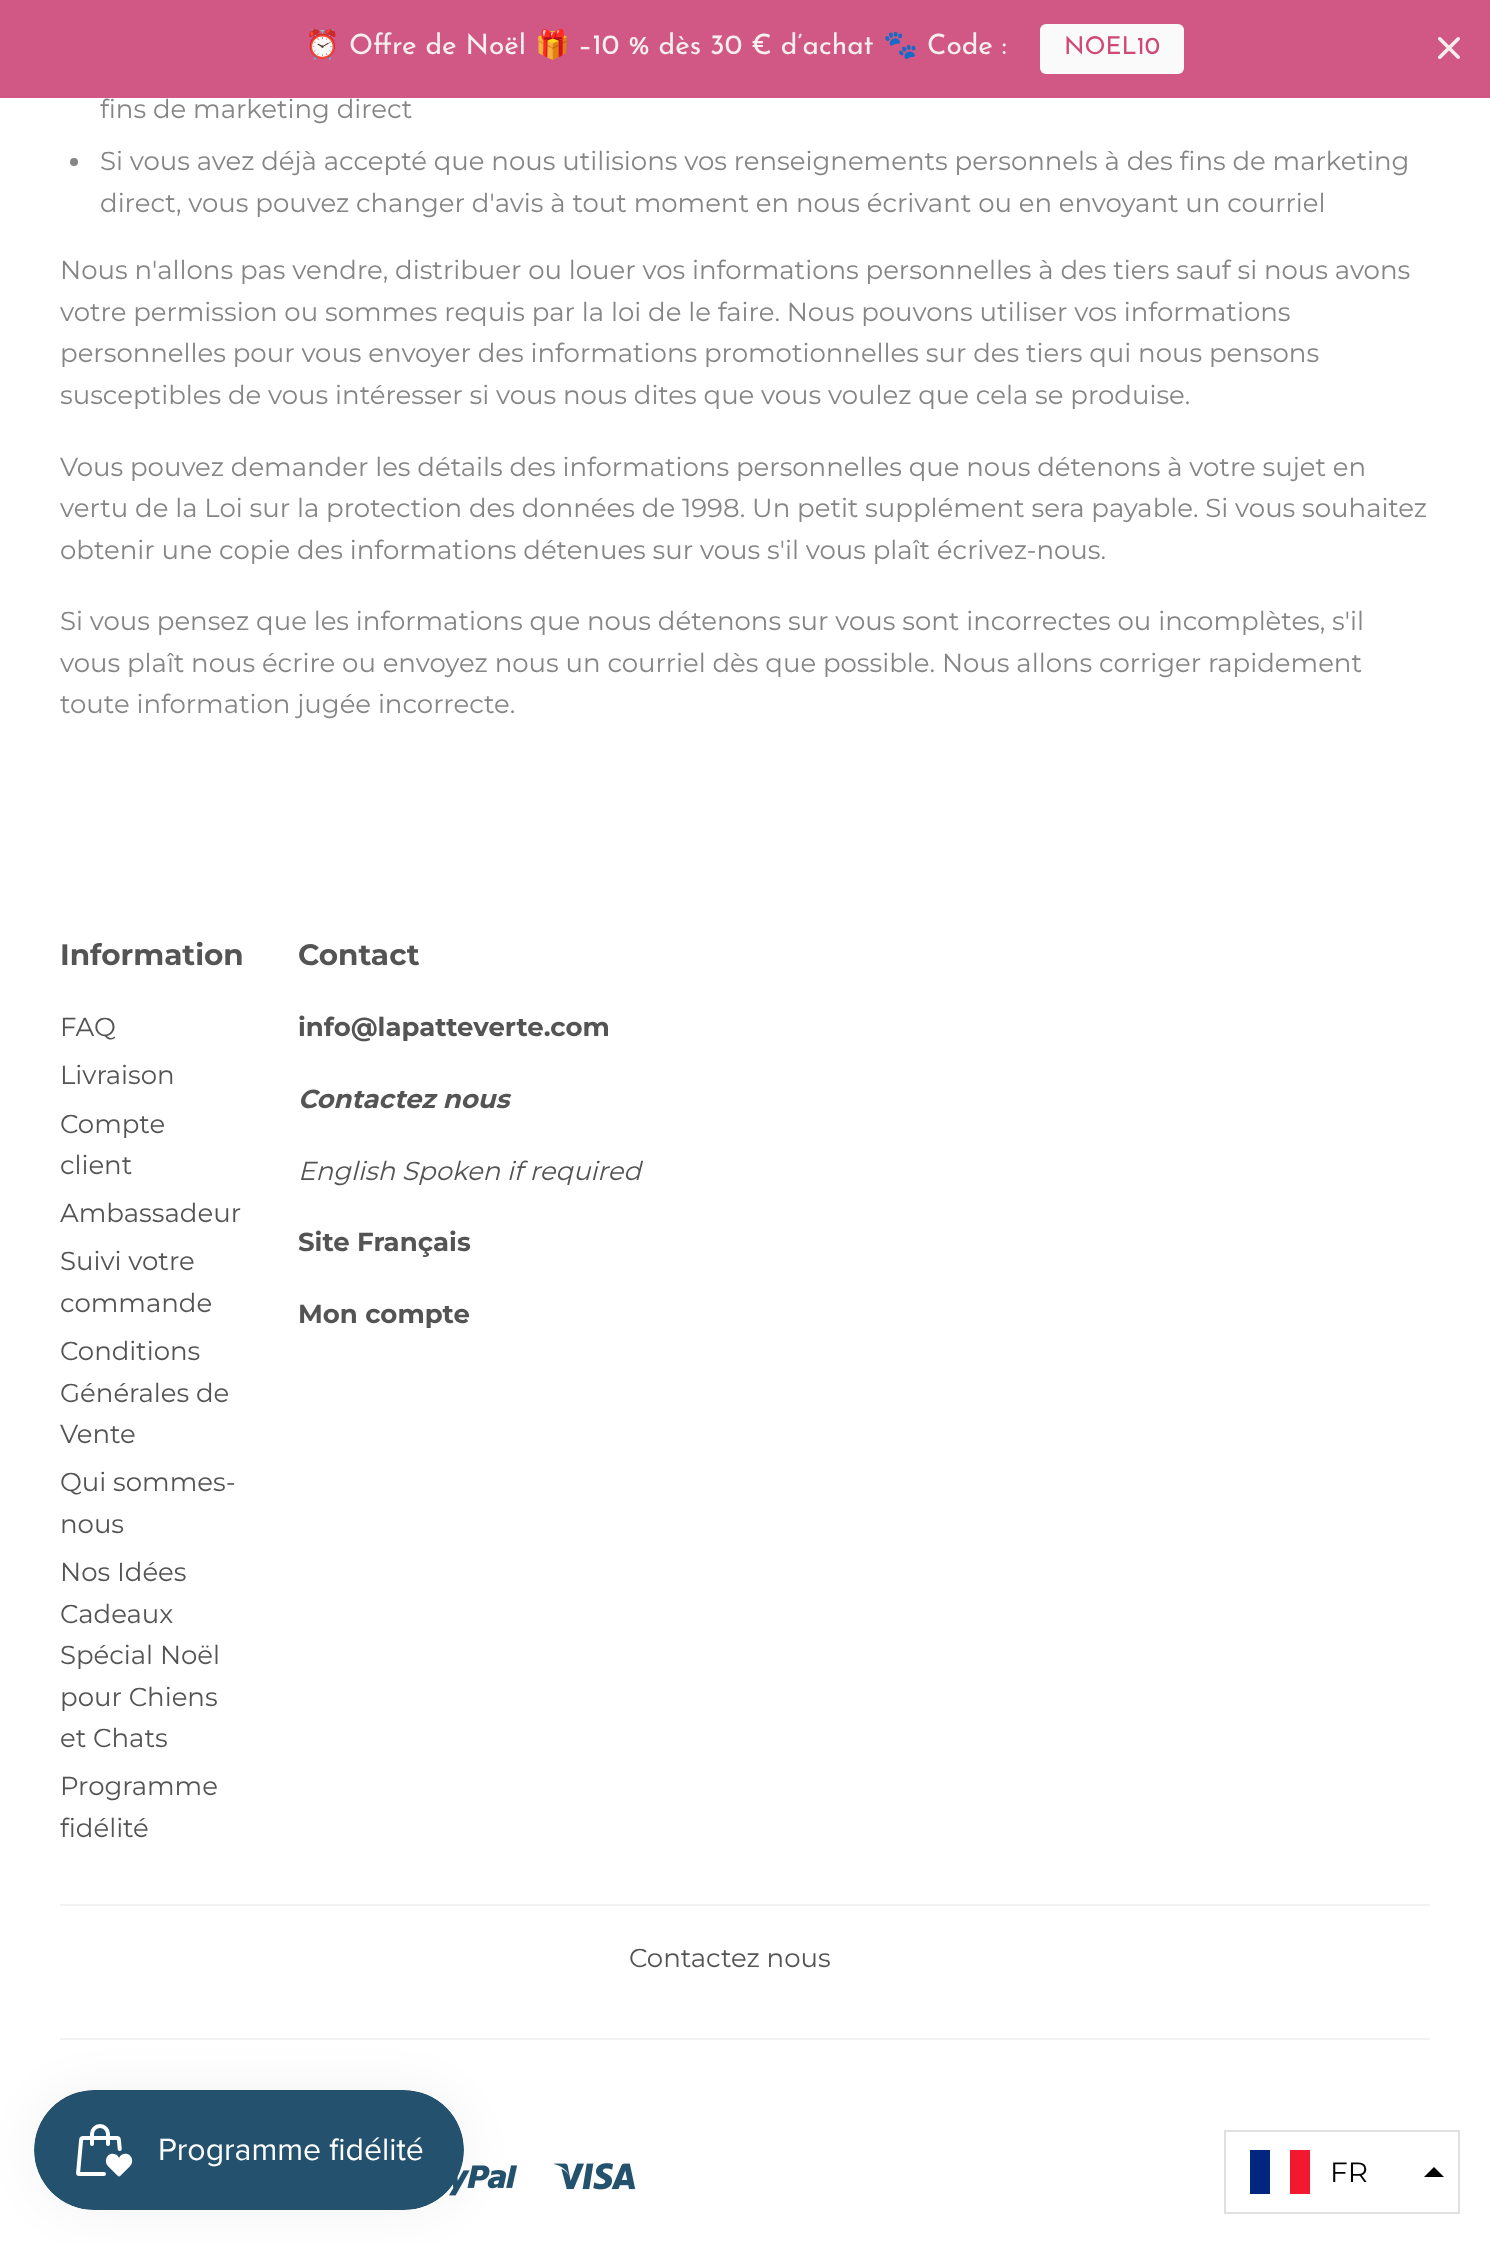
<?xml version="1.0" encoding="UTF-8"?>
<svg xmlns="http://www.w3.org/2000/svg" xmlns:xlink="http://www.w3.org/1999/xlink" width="1490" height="2244">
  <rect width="100%" height="100%" fill="#ffffff" />
  <rect width="1490" height="98" fill="#d15884" />
  <rect x="1040" y="24" width="144" height="50" rx="6" fill="#fafafa" />
  <image x="1438" y="37" width="22" height="22" xlink:href="image1.png" />
  <circle cx="74" cy="162" r="4" fill="#858585" />
  <rect x="60" y="1904" width="1370" height="2" fill="#f2f2f2" />
  <rect x="60" y="2038" width="1370" height="2" fill="#f2f2f2" />
  <image x="449" y="2165" width="69" height="31" xlink:href="image2.png" />
  <image x="554" y="2163" width="82" height="27" xlink:href="image3.png" />
  <rect x="34" y="2090" width="430" height="120" rx="60" fill="#000000" fill-opacity="0.05" filter="blur(25px)" />
  <image x="34" y="2090" width="430" height="120" xlink:href="image4.png" />
  <rect x="1225" y="2131" width="234" height="82" fill="none" stroke="#e0e0e0" stroke-width="2" />
  <rect x="1250" y="2150" width="20" height="44" fill="#00267f" />
  <rect x="1290" y="2150" width="20" height="44" fill="#f31830" />
  <path d="M 1424 2177 l 10 -10 l 10 10 z" fill="#000000" fill-rule="evenodd" />
  <text x="305" y="54" style="font-family: Noto Color Emoji; font-size: 28px; fill: #f5f0ef">⏰</text>
  <text x="349" y="54" style="font-family: Josefin Sans; font-size: 28px; font-weight: 100; fill: #f5f0ef">Offre de Noël</text>
  <text x="535" y="54" style="font-family: Noto Color Emoji; font-size: 28px; fill: #f5f0ef">🎁</text>
  <text x="578" y="54" style="font-family: Josefin Sans; font-size: 28px; font-weight: 100; fill: #f5f0ef">–10 % dès 30 € d’achat</text>
  <text x="883" y="54" style="font-family: Noto Color Emoji; font-size: 28px; fill: #f5f0ef">🐾</text>
  <text x="927" y="54" style="font-family: Josefin Sans; font-size: 28px; font-weight: 100; fill: #f5f0ef">Code :</text>
  <text x="1064" y="54" style="font-family: Josefin Sans; font-size: 24.5px; font-weight: 100; fill: #d04875">NOEL10</text>
  <text x="100" y="118" style="font-family: Montserrat; font-size: 26px; fill: #858585">fins de marketing direct</text>
  <text x="100" y="170" style="font-family: Montserrat; font-size: 26px; fill: #858585">Si vous avez déjà accepté que nous utilisions vos renseignements personnels à des fins de marketing</text>
  <text x="100" y="212" style="font-family: Montserrat; font-size: 26px; fill: #858585">direct, vous pouvez changer d'avis à tout moment en nous écrivant ou en envoyant un courriel</text>
  <text x="60" y="279" style="font-family: Montserrat; font-size: 26px; fill: #858585">Nous n'allons pas vendre, distribuer ou louer vos informations personnelles à des tiers sauf si nous avons</text>
  <text x="60" y="321" style="font-family: Montserrat; font-size: 26px; fill: #858585">votre permission ou sommes requis par la loi de le faire. Nous pouvons utiliser vos informations</text>
  <text x="60" y="362" style="font-family: Montserrat; font-size: 26px; fill: #858585">personnelles pour vous envoyer des informations promotionnelles sur des tiers qui nous pensons</text>
  <text x="60" y="404" style="font-family: Montserrat; font-size: 26px; fill: #858585">susceptibles de vous intéresser si vous nous dites que vous voulez que cela se produise.</text>
  <text x="60" y="476" style="font-family: Montserrat; font-size: 26px; fill: #858585">Vous pouvez demander les détails des informations personnelles que nous détenons à votre sujet en</text>
  <text x="60" y="517" style="font-family: Montserrat; font-size: 26px; fill: #858585">vertu de la Loi sur la protection des données de 1998. Un petit supplément sera payable. Si vous souhaitez</text>
  <text x="60" y="559" style="font-family: Montserrat; font-size: 26px; fill: #858585">obtenir une copie des informations détenues sur vous s'il vous plaît écrivez-nous.</text>
  <text x="60" y="630" style="font-family: Montserrat; font-size: 26px; fill: #858585">Si vous pensez que les informations que nous détenons sur vous sont incorrectes ou incomplètes, s'il</text>
  <text x="60" y="672" style="font-family: Montserrat; font-size: 26px; fill: #858585">vous plaît nous écrire ou envoyez nous un courriel dès que possible. Nous allons corriger rapidement</text>
  <text x="60" y="713" style="font-family: Montserrat; font-size: 26px; fill: #858585">toute information jugée incorrecte.</text>
  <text x="60" y="965" style="font-family: Montserrat; font-size: 29.5px; font-weight: bold; fill: #545454">Information</text>
  <text x="60" y="1036" style="font-family: Montserrat; font-size: 26px; fill: #545454">FAQ</text>
  <text x="60" y="1084" style="font-family: Montserrat; font-size: 26px; fill: #545454">Livraison</text>
  <text x="60" y="1133" style="font-family: Montserrat; font-size: 26px; fill: #545454">Compte</text>
  <text x="60" y="1174" style="font-family: Montserrat; font-size: 26px; fill: #545454">client</text>
  <text x="60" y="1222" style="font-family: Montserrat; font-size: 26px; fill: #545454">Ambassadeur</text>
  <text x="60" y="1270" style="font-family: Montserrat; font-size: 26px; fill: #545454">Suivi votre</text>
  <text x="60" y="1312" style="font-family: Montserrat; font-size: 26px; fill: #545454">commande</text>
  <text x="60" y="1360" style="font-family: Montserrat; font-size: 26px; fill: #545454">Conditions</text>
  <text x="60" y="1402" style="font-family: Montserrat; font-size: 26px; fill: #545454">Générales de</text>
  <text x="60" y="1443" style="font-family: Montserrat; font-size: 26px; fill: #545454">Vente</text>
  <text x="60" y="1491" style="font-family: Montserrat; font-size: 26px; fill: #545454">Qui sommes-</text>
  <text x="60" y="1533" style="font-family: Montserrat; font-size: 26px; fill: #545454">nous</text>
  <text x="60" y="1581" style="font-family: Montserrat; font-size: 26px; fill: #545454">Nos Idées</text>
  <text x="60" y="1623" style="font-family: Montserrat; font-size: 26px; fill: #545454">Cadeaux</text>
  <text x="60" y="1664" style="font-family: Montserrat; font-size: 26px; fill: #545454">Spécial Noël</text>
  <text x="60" y="1706" style="font-family: Montserrat; font-size: 26px; fill: #545454">pour Chiens</text>
  <text x="60" y="1747" style="font-family: Montserrat; font-size: 26px; fill: #545454">et Chats</text>
  <text x="60" y="1795" style="font-family: Montserrat; font-size: 26px; fill: #545454">Programme</text>
  <text x="60" y="1837" style="font-family: Montserrat; font-size: 26px; fill: #545454">fidélité</text>
  <text x="298" y="965" style="font-family: Montserrat; font-size: 29.5px; font-weight: bold; fill: #545454">Contact</text>
  <text x="298" y="1036" style="font-family: Montserrat; font-size: 26px; font-weight: bold; fill: #545454">info@lapatteverte.com</text>
  <text x="298" y="1108" style="font-family: Montserrat; font-size: 26px; font-weight: bold; font-style: italic; fill: #545454">Contactez nous</text>
  <text x="298" y="1180" style="font-family: Montserrat; font-size: 26px; font-style: italic; fill: #545454">English Spoken if required</text>
  <text x="298" y="1251" style="font-family: Montserrat; font-size: 26px; font-weight: bold; fill: #545454">Site Français</text>
  <text x="298" y="1323" style="font-family: Montserrat; font-size: 26px; font-weight: bold; fill: #545454">Mon compte</text>
  <text x="629" y="1967" style="font-family: Montserrat; font-size: 26px; fill: #545454">Contactez nous</text>
  <text x="1330" y="2182" style="font-family: Montserrat; font-size: 28px; fill: #000000">FR</text>
</svg>
